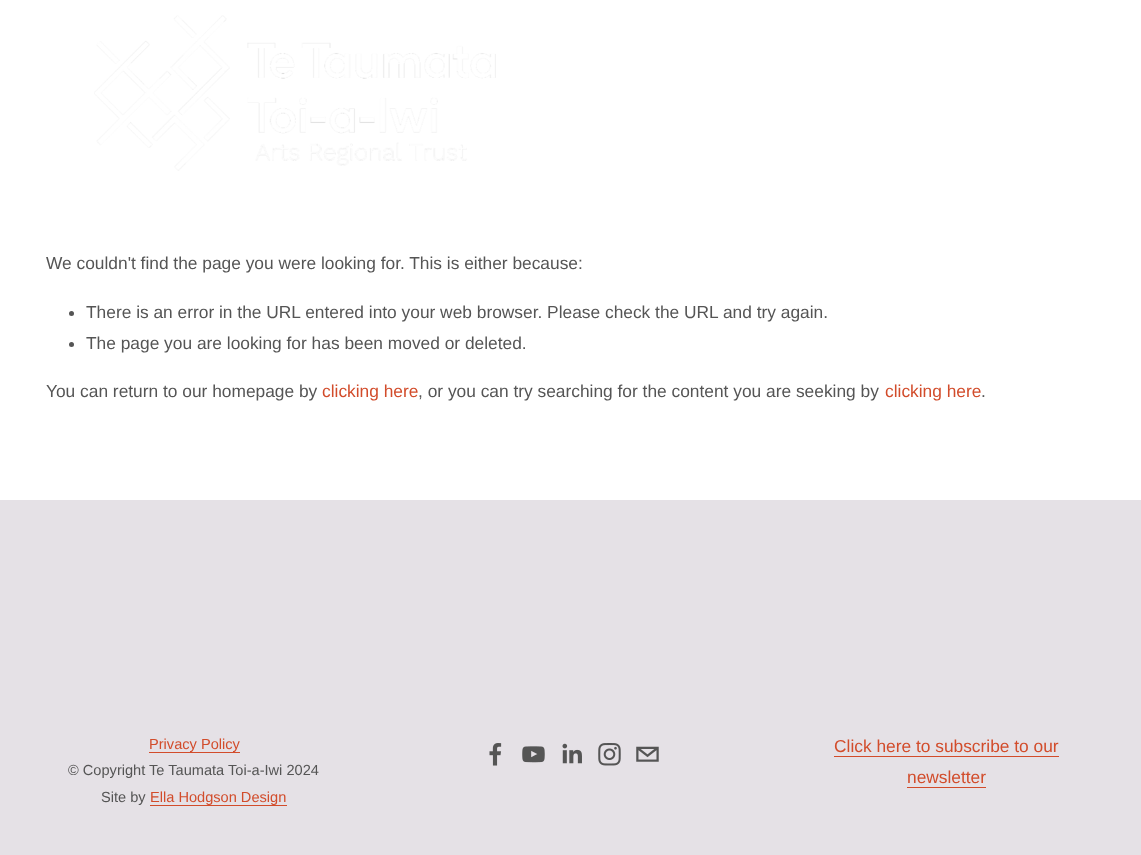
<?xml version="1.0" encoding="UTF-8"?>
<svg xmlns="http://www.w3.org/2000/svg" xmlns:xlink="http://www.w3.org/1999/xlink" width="1141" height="855">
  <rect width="100%" height="100%" fill="#ffffff" />
  <image x="94" y="15" width="402" height="156" xlink:href="image1.png" />
  <circle cx="71.5" cy="313.5" r="2.5" fill="#555555" />
  <circle cx="71.5" cy="344.5" r="2.5" fill="#555555" />
  <rect y="500" width="1141" height="355" fill="#e5e1e6" />
  <rect x="149" y="752" width="91" height="1" fill="#d24c2b" />
  <rect x="150" y="805" width="137" height="1" fill="#d24c2b" />
  <image x="489" y="743" width="13" height="23" xlink:href="image2.png" />
  <image x="522" y="746" width="23" height="17" xlink:href="image3.png" />
  <image x="562" y="743" width="20" height="21" xlink:href="image4.png" />
  <image x="598" y="743" width="23" height="23" xlink:href="image5.png" />
  <image x="636" y="746" width="23" height="16" xlink:href="image6.png" />
  <rect x="834" y="756" width="225" height="1" fill="#d24c2b" />
  <rect x="907" y="787" width="79" height="1" fill="#d24c2b" />
  <text x="46" y="269" style="font-family: Liberation Sans; font-size: 17.35px; fill: #555555">We couldn't find the page you were looking for. This is either because:</text>
  <text x="86" y="318" style="font-family: Liberation Sans; font-size: 17.35px; fill: #555555">There is an error in the URL entered into your web browser. Please check the URL and try again.</text>
  <text x="86" y="349" style="font-family: Liberation Sans; font-size: 17.35px; fill: #555555">The page you are looking for has been moved or deleted.</text>
  <text x="46" y="397" style="font-family: Liberation Sans; font-size: 17.35px; fill: #555555">You can return to our homepage by</text>
  <text x="322" y="397" style="font-family: Liberation Sans; font-size: 17.35px; fill: #d24c2b">clicking here</text>
  <text x="418" y="397" style="font-family: Liberation Sans; font-size: 17.35px; fill: #555555">, or you can try searching for the content you are seeking by</text>
  <text x="885" y="397" style="font-family: Liberation Sans; font-size: 17.35px; fill: #d24c2b">clicking here</text>
  <text x="981" y="397" style="font-family: Liberation Sans; font-size: 17.35px; fill: #555555">.</text>
  <text x="149" y="749" style="font-family: Liberation Sans; font-size: 14.6px; fill: #d24c2b">Privacy Policy</text>
  <text x="68" y="775" style="font-family: Liberation Sans; font-size: 14.6px; fill: #555555">© Copyright Te Taumata Toi-a-Iwi 2024</text>
  <text x="101" y="802" style="font-family: Liberation Sans; font-size: 14.6px; fill: #555555">Site by</text>
  <text x="150" y="802" style="font-family: Liberation Sans; font-size: 14.6px; fill: #d24c2b">Ella Hodgson Design</text>
  <text x="834" y="752" style="font-family: Liberation Sans; font-size: 17.35px; fill: #d24c2b">Click here to subscribe to our</text>
  <text x="907" y="783" style="font-family: Liberation Sans; font-size: 17.35px; fill: #d24c2b">newsletter</text>
</svg>
